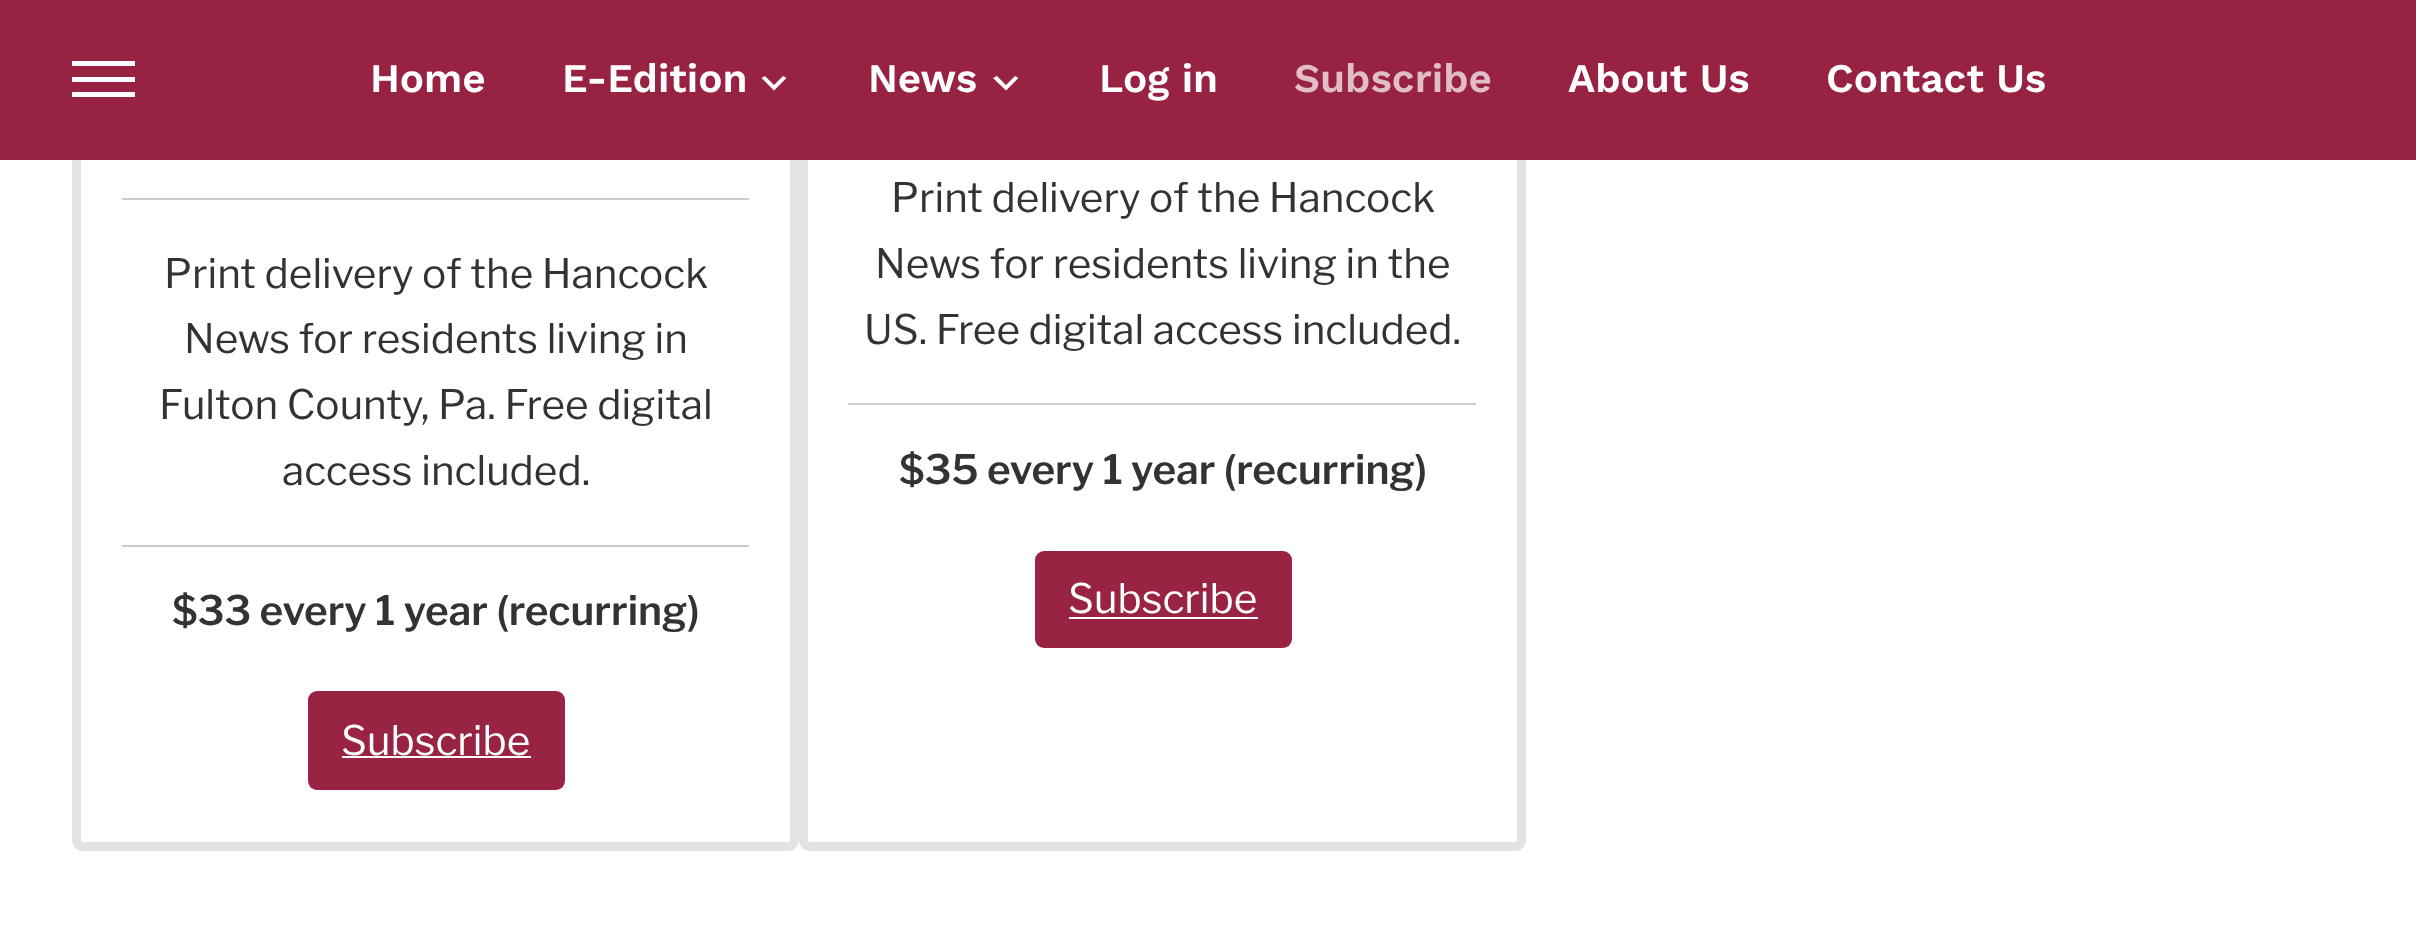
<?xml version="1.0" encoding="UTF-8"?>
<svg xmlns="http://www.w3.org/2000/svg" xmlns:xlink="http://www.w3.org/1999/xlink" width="2416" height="939">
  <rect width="100%" height="100%" fill="#ffffff" />
  <rect x="76.5" y="-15.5" width="718" height="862" rx="6.5" fill="none" stroke="#e3e3e3" stroke-width="9" />
  <rect x="803.5" y="-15.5" width="718" height="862" rx="6.5" fill="none" stroke="#e3e3e3" stroke-width="9" />
  <rect width="2416" height="160" fill="#982243" />
  <rect x="72" y="61" width="63" height="5" fill="#ffffff" />
  <rect x="72" y="77" width="63" height="5" fill="#ffffff" />
  <rect x="72" y="92" width="63" height="5" fill="#ffffff" />
  <path d="M 765 76 l 9 9 l 9 -9 l 3.5 2 l -12.5 12.5 l -12.5 -12.5 z" fill="#ffffff" />
  <path d="M 997 76 l 9 9 l 9 -9 l 3.5 2 l -12.5 12.5 l -13 -12.5 z" fill="#ffffff" />
  <rect x="122" y="198" width="627" height="2" fill="#cccccc" />
  <rect x="122" y="545" width="627" height="2" fill="#cccccc" />
  <rect x="308" y="691" width="257" height="99" rx="9" fill="#992343" />
  <rect x="342" y="756" width="189" height="2" fill="#ffffff" />
  <rect x="848" y="403" width="628" height="2" fill="#cccccc" />
  <rect x="1035" y="551" width="257" height="97" rx="9" fill="#992343" />
  <rect x="1069" y="617" width="189" height="2" fill="#ffffff" />
  <text x="370" y="92" style="font-family: Work Sans; font-size: 40.5px; font-weight: 600; fill: #ffffff">Home</text>
  <text x="562" y="92" style="font-family: Work Sans; font-size: 40.5px; font-weight: 600; fill: #ffffff">E-Edition</text>
  <text x="868" y="92" style="font-family: Work Sans; font-size: 40.5px; font-weight: 600; fill: #ffffff">News</text>
  <text x="1099" y="92" style="font-family: Work Sans; font-size: 40.5px; font-weight: 600; fill: #ffffff">Log in</text>
  <text x="1294" y="92" style="font-family: Work Sans; font-size: 40.5px; font-weight: 600; fill: #e0bdc7">Subscribe</text>
  <text x="1568" y="92" style="font-family: Work Sans; font-size: 40.5px; font-weight: 600; fill: #ffffff">About Us</text>
  <text x="1826" y="92" style="font-family: Work Sans; font-size: 40.5px; font-weight: 600; fill: #ffffff">Contact Us</text>
  <text x="164" y="288" style="font-family: Libre Franklin; font-size: 40.5px; fill: #333333">Print delivery of the Hancock</text>
  <text x="184" y="353" style="font-family: Libre Franklin; font-size: 40.5px; fill: #333333">News for residents living in</text>
  <text x="159" y="419" style="font-family: Libre Franklin; font-size: 40.5px; fill: #333333">Fulton County, Pa. Free digital</text>
  <text x="282" y="485" style="font-family: Libre Franklin; font-size: 40.5px; fill: #333333">access included.</text>
  <text x="172" y="625" style="font-family: Libre Franklin; font-size: 40.5px; font-weight: 600; fill: #333333">$33 every 1 year (recurring)</text>
  <text x="341" y="755" style="font-family: Libre Franklin; font-size: 40.5px; fill: #ffffff">Subscribe</text>
  <text x="891" y="212" style="font-family: Libre Franklin; font-size: 40.5px; fill: #333333">Print delivery of the Hancock</text>
  <text x="875" y="278" style="font-family: Libre Franklin; font-size: 40.5px; fill: #333333">News for residents living in the</text>
  <text x="864" y="344" style="font-family: Libre Franklin; font-size: 40.5px; fill: #333333">US. Free digital access included.</text>
  <text x="899" y="484" style="font-family: Libre Franklin; font-size: 40.5px; font-weight: 600; fill: #333333">$35 every 1 year (recurring)</text>
  <text x="1068" y="613" style="font-family: Libre Franklin; font-size: 40.5px; fill: #ffffff">Subscribe</text>
</svg>
